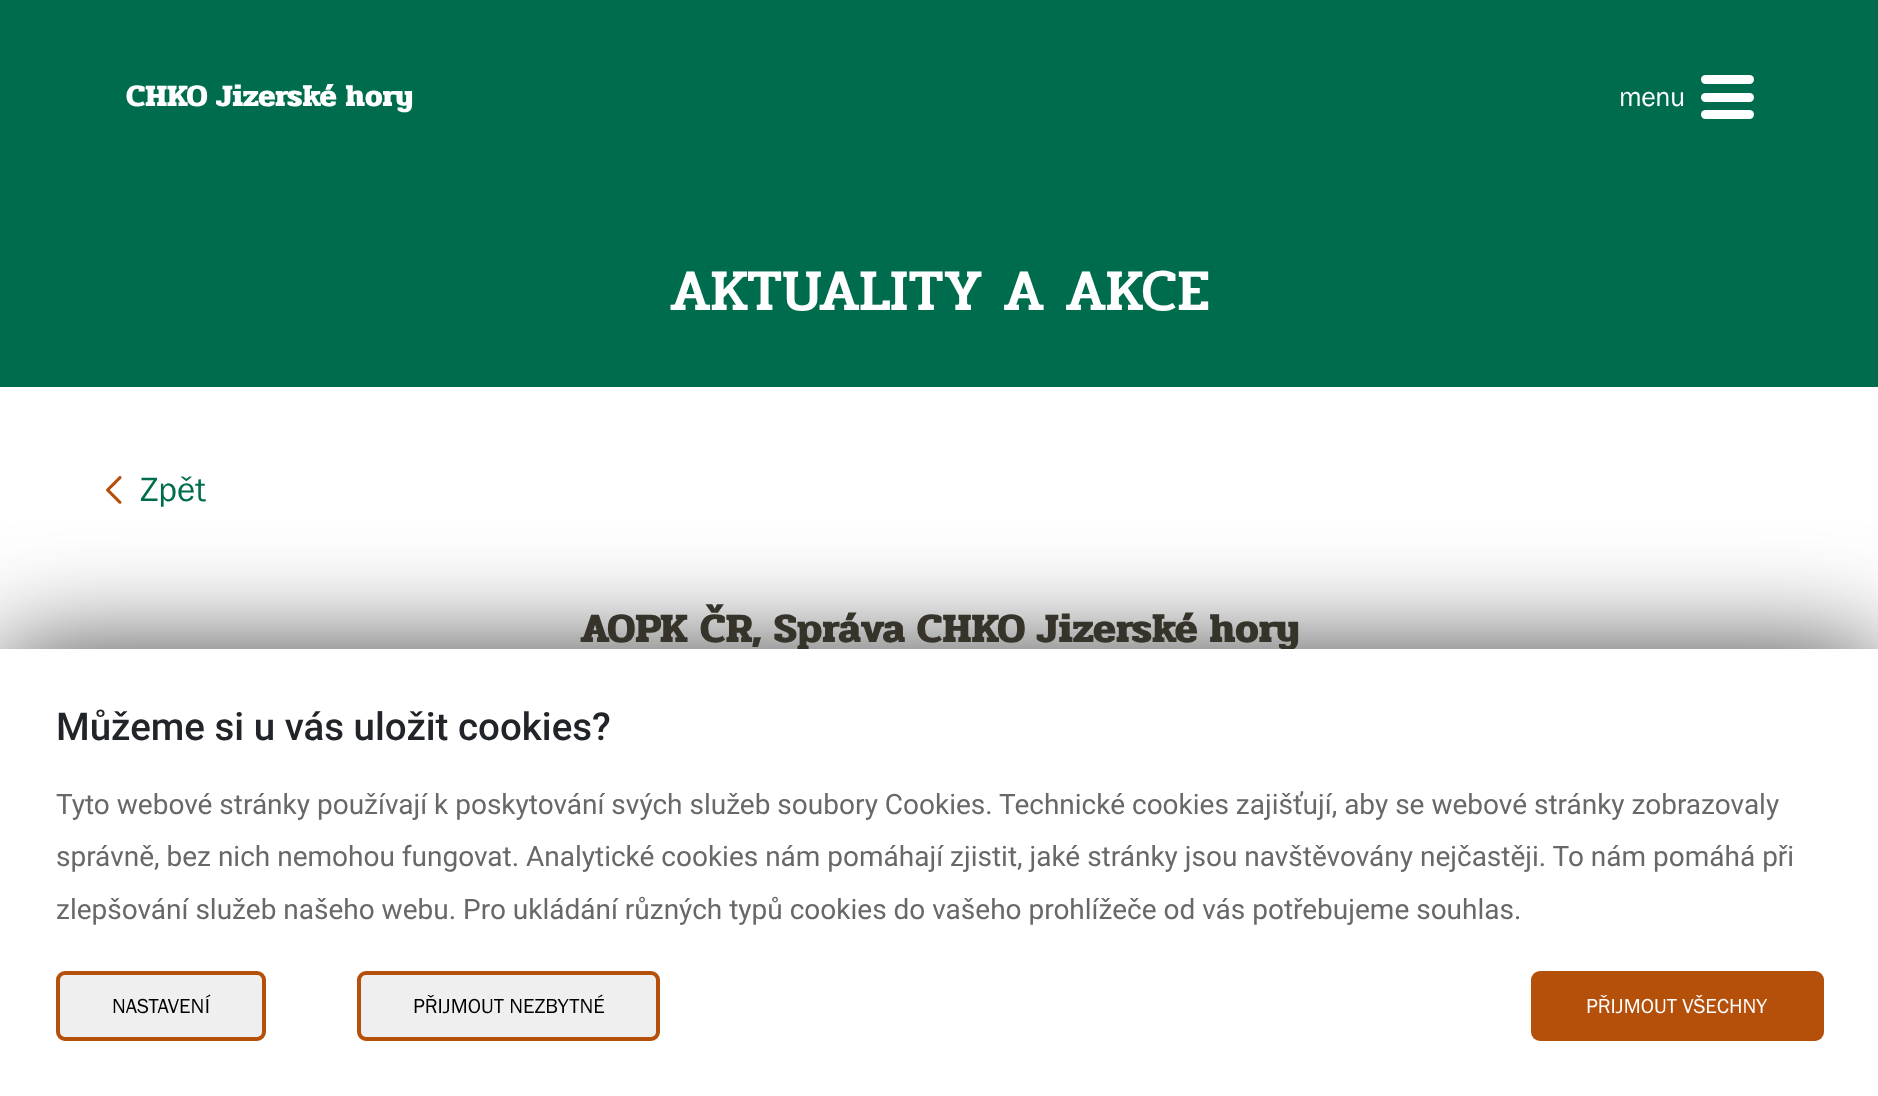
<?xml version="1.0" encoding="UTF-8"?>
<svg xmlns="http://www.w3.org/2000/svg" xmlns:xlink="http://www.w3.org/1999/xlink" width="1878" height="1096">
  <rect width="100%" height="100%" fill="#ffffff" />
  <rect width="1878" height="387" fill="#006c4e" />
  <rect x="1701" y="75" width="53" height="9" rx="4.5" fill="#ffffff" />
  <rect x="1701" y="93" width="53" height="9" rx="4.5" fill="#ffffff" />
  <rect x="1701" y="110" width="53" height="9" rx="4.5" fill="#ffffff" />
  <image x="106" y="476" width="16" height="28" xlink:href="image1.png" />
  <rect y="653" width="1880" height="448" fill="#3b3b3b" filter="blur(56px)" />
  <text x="126" y="106" style="font-family: Pridi; font-size: 31.5px; font-weight: bold; fill: #ffffff">CHKO Jizerské hory</text>
  <text x="1619" y="106" style="font-family: Franklin Gothic; font-size: 28px; letter-spacing: -0.5px; fill: #ffffff">menu</text>
  <text x="669" y="310" style="font-family: Pridi; font-size: 59.5px; font-weight: 500; fill: #ffffff">AKTUALITY A AKCE</text>
  <text x="140" y="501" style="font-family: Franklin Gothic; font-size: 35px; fill: #006c4e">Zpět</text>
  <text x="580" y="642" style="font-family: Pridi; font-size: 42px; font-weight: bold; fill: #36332a">AOPK ČR, Správa CHKO Jizerské hory</text>
  <rect y="649" width="1878" height="447" fill="#ffffff" />
  <text x="56" y="740" style="font-family: Roboto; font-size: 38.5px; font-weight: 500; fill: #212529">Můžeme si u vás uložit cookies?</text>
  <text x="56" y="814" style="font-family: Roboto; font-size: 28px; fill: #686868">Tyto webové stránky používají k poskytování svých služeb soubory Cookies. Technické cookies zajišťují, aby se webové stránky zobrazovaly</text>
  <text x="56" y="866" style="font-family: Roboto; font-size: 28px; fill: #686868">správně, bez nich nemohou fungovat. Analytické cookies nám pomáhají zjistit, jaké stránky jsou navštěvovány nejčastěji. To nám pomáhá při</text>
  <text x="56" y="919" style="font-family: Roboto; font-size: 28px; fill: #686868">zlepšování služeb našeho webu. Pro ukládání různých typů cookies do vašeho prohlížeče od vás potřebujeme souhlas.</text>
  <rect x="58" y="973" width="206" height="66" rx="7" fill="#efefef" stroke="#b4500a" stroke-width="4" />
  <text x="112" y="1013" style="font-family: Franklin Gothic; font-size: 21px; fill: #000000">NASTAVENÍ</text>
  <rect x="359" y="973" width="299" height="66" rx="7" fill="#efefef" stroke="#b4500a" stroke-width="4" />
  <text x="413" y="1013" style="font-family: Franklin Gothic; font-size: 21px; fill: #000000">PŘIJMOUT NEZBYTNÉ</text>
  <rect x="1531" y="971" width="293" height="70" rx="9" fill="#b4500a" />
  <text x="1586" y="1013" style="font-family: Franklin Gothic; font-size: 21px; fill: #ffffff">PŘIJMOUT VŠECHNY</text>
</svg>
